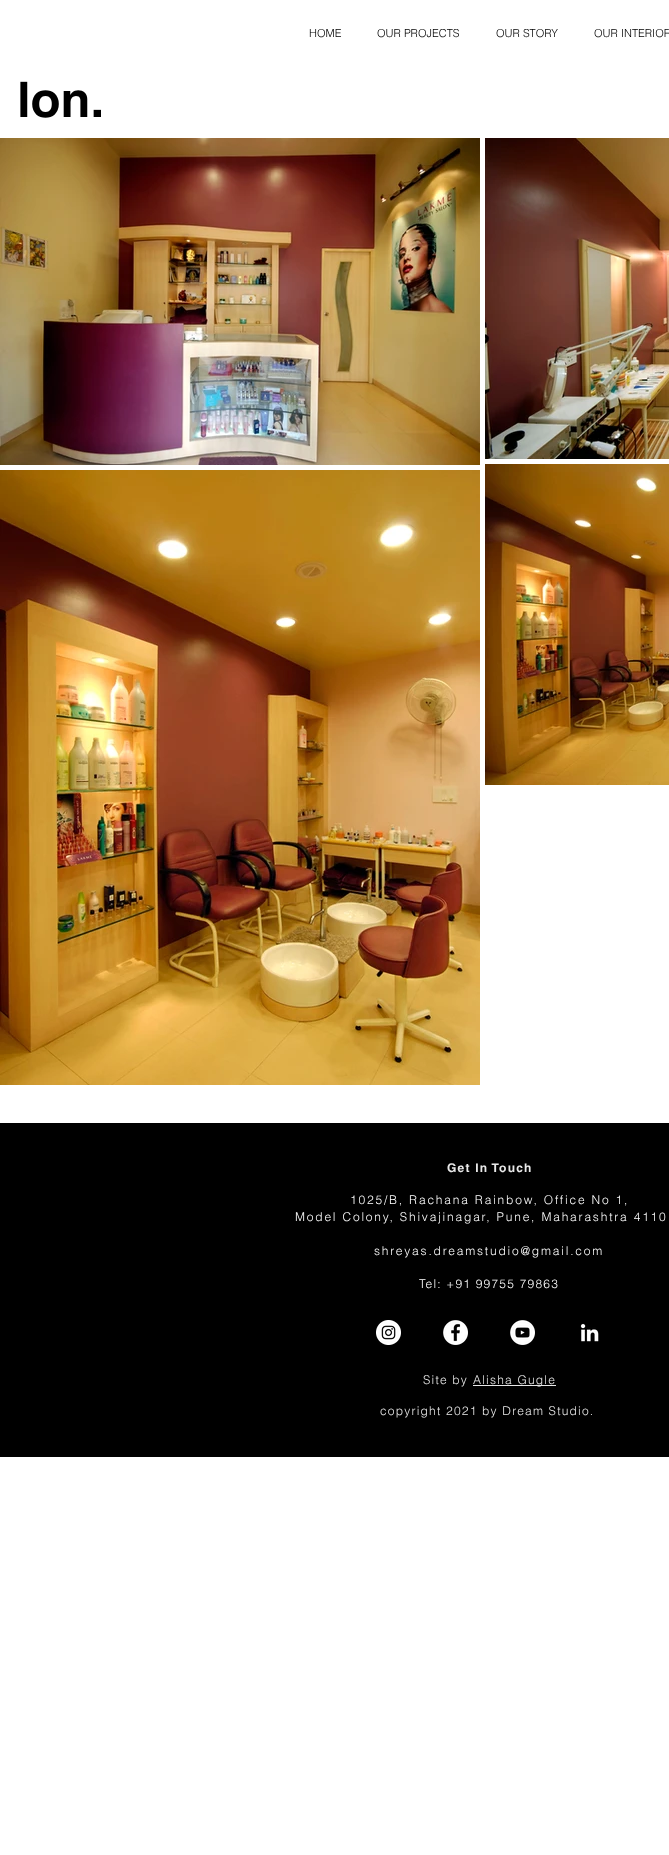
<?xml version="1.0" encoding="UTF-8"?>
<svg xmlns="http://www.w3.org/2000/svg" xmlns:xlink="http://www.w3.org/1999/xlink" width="669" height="1855">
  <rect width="100%" height="100%" fill="#ffffff" />
  <image x="0" y="138" width="480" height="327" xlink:href="image1.png" />
  <image x="485" y="138" width="184" height="321" xlink:href="image2.png" />
  <image x="0" y="470" width="480" height="615" xlink:href="image3.png" />
  <image x="485" y="464" width="184" height="321" xlink:href="image4.png" />
  <rect y="1123" width="669" height="334" fill="#000000" />
  <image x="376" y="1320" width="25" height="25" xlink:href="image5.png" />
  <image x="443" y="1320" width="25" height="25" xlink:href="image6.png" />
  <image x="510" y="1320" width="25" height="25" xlink:href="image7.png" />
  <image x="580" y="1323" width="19" height="19" xlink:href="image8.png" />
  <rect x="473" y="1385" width="83" height="1" fill="#e8e8e8" />
  <text x="309" y="37" style="font-family: helvetica; font-size: 11px; font-weight: 300; fill: #000000">HOME</text>
  <text x="377" y="37" style="font-family: helvetica; font-size: 11px; font-weight: 300; fill: #000000">OUR PROJECTS</text>
  <text x="496" y="37" style="font-family: helvetica; font-size: 11px; font-weight: 300; fill: #000000">OUR STORY</text>
  <text x="594" y="37" style="font-family: helvetica; font-size: 11px; font-weight: 300; fill: #000000">OUR INTERIOR</text>
  <text x="17" y="117" style="font-family: helvetica; font-size: 49px; font-weight: bold; fill: #000000">lon.</text>
  <text x="447" y="1172" style="font-family: helvetica; font-size: 12px; font-weight: bold; letter-spacing: 1.2px; fill: #e8e8e8">Get In Touch</text>
  <text x="350" y="1204" style="font-family: helvetica; font-size: 12px; font-weight: 300; letter-spacing: 1.8px; fill: #ffffff">1025/B, Rachana Rainbow, Office No 1,</text>
  <text x="295" y="1221" style="font-family: helvetica; font-size: 12px; font-weight: 300; letter-spacing: 1.8px; fill: #ffffff">Model Colony, Shivajinagar, Pune, Maharashtra 4110</text>
  <text x="374" y="1255" style="font-family: helvetica; font-size: 12px; font-weight: 300; letter-spacing: 1.8px; fill: #ffffff">shreyas.dreamstudio@gmail.com</text>
  <text x="419" y="1288" style="font-family: helvetica; font-size: 12px; font-weight: 300; letter-spacing: 1.2px; fill: #ffffff">Tel: +91 99755 79863</text>
  <text x="423" y="1384" style="font-family: helvetica; font-size: 12px; font-weight: 300; letter-spacing: 1.2px; fill: #e8e8e8">Site by</text>
  <text x="473" y="1384" style="font-family: helvetica; font-size: 12px; font-weight: 300; letter-spacing: 1.2px; fill: #e8e8e8">Alisha Gugle</text>
  <text x="380" y="1415" style="font-family: helvetica; font-size: 12px; font-weight: 300; letter-spacing: 1.2px; fill: #e8e8e8">copyright 2021 by Dream Studio.</text>
</svg>
